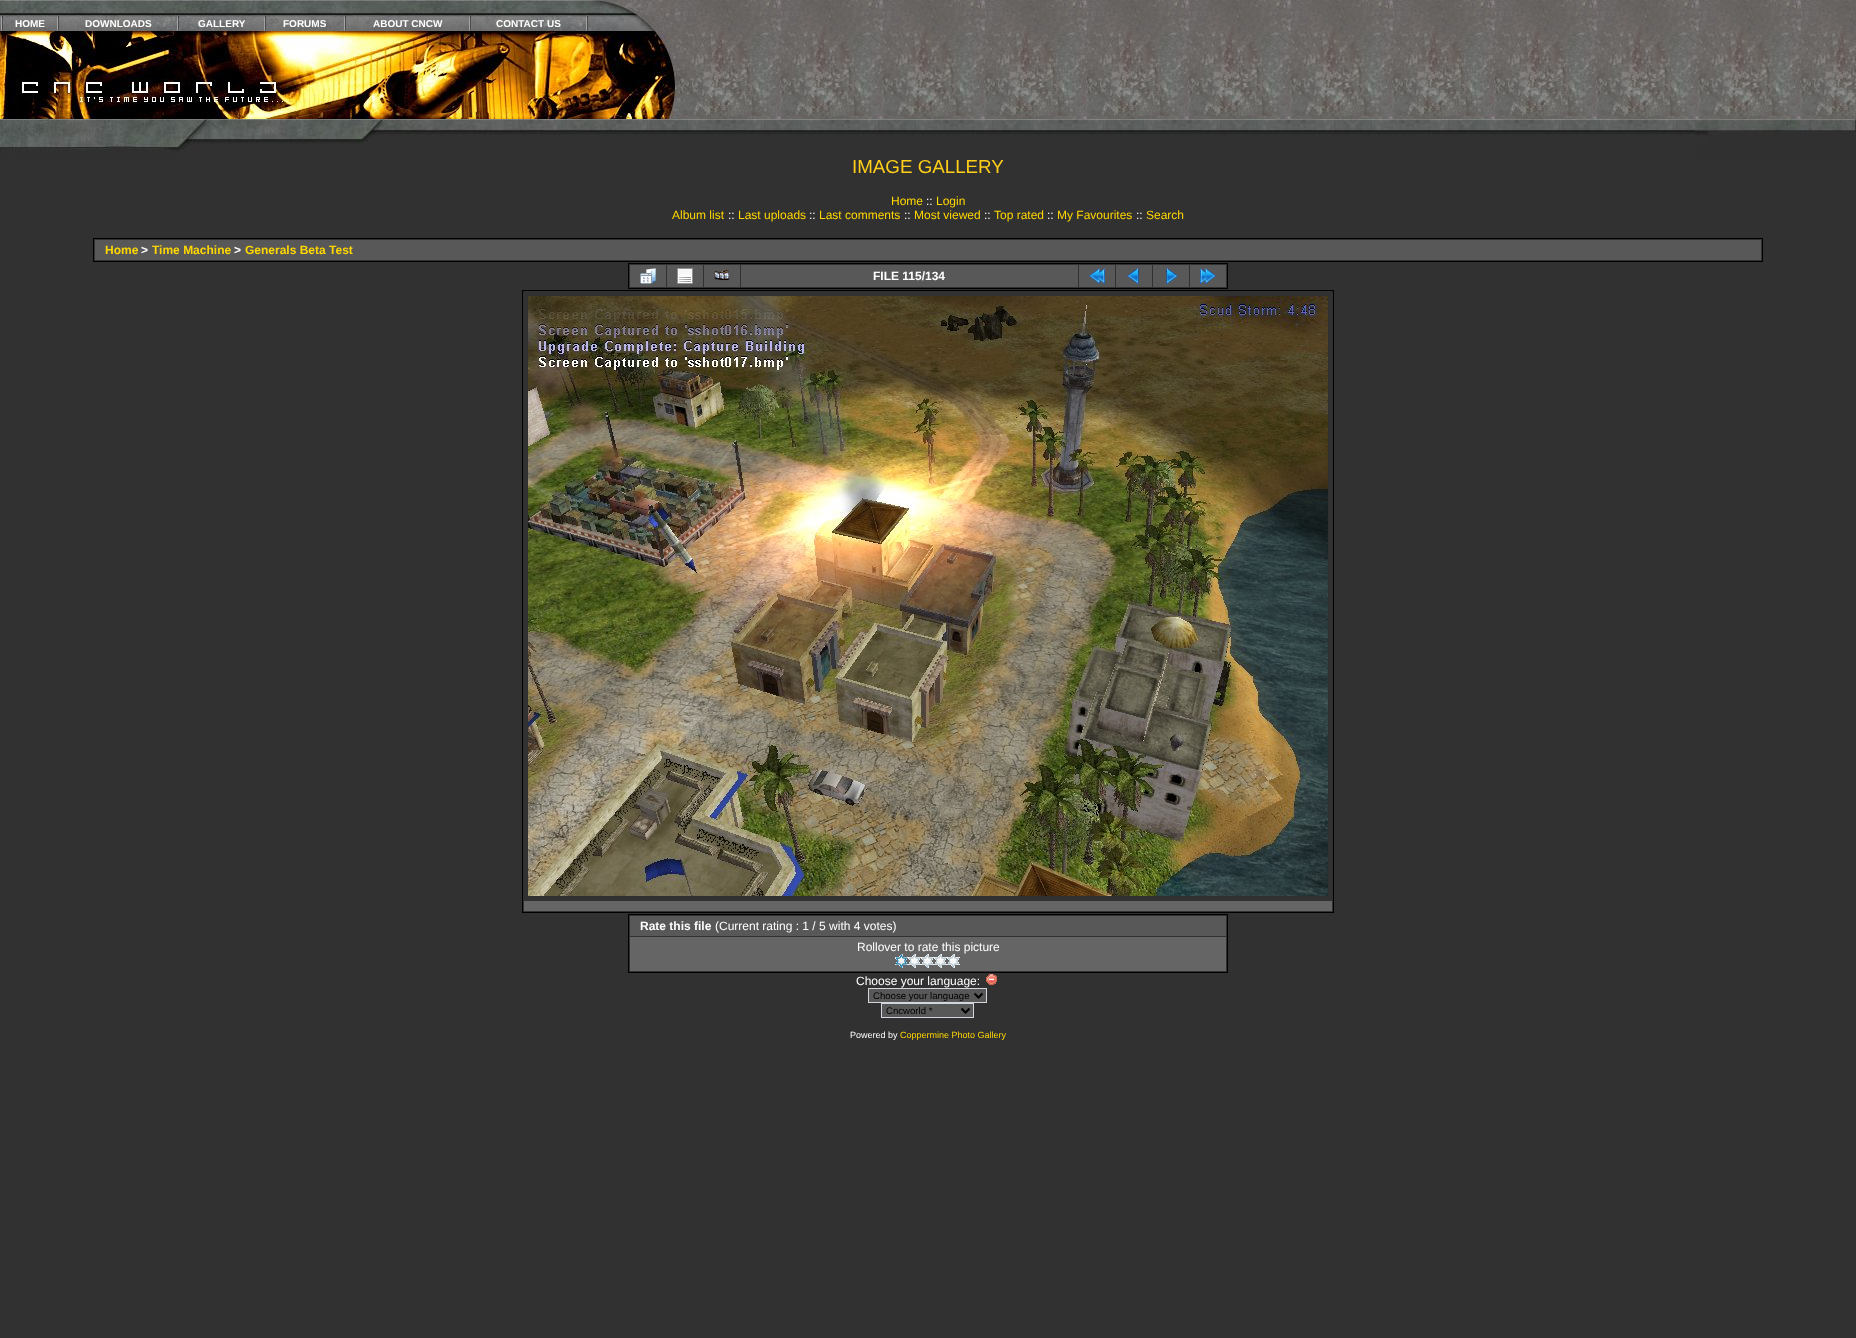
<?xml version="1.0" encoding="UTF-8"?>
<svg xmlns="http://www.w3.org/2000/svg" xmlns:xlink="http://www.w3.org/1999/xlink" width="1856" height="1338">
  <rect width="100%" height="100%" fill="#313131" />
  <image x="0" y="0" width="589" height="16" xlink:href="image1.png" />
  <image x="0" y="16" width="589" height="15" xlink:href="image2.png" />
  <image x="1" y="16" width="2" height="15" xlink:href="image3.png" />
  <image x="57" y="16" width="2" height="15" xlink:href="image3.png" />
  <image x="177" y="16" width="2" height="15" xlink:href="image3.png" />
  <image x="264" y="16" width="2" height="15" xlink:href="image3.png" />
  <image x="344" y="16" width="2" height="15" xlink:href="image3.png" />
  <image x="469" y="16" width="2" height="15" xlink:href="image3.png" />
  <image x="586" y="16" width="2" height="15" xlink:href="image3.png" />
  <image x="0" y="31" width="296" height="88" xlink:href="image4.png" />
  <image x="296" y="31" width="293" height="88" xlink:href="image5.png" />
  <image x="589" y="0" width="90" height="119" xlink:href="image6.png" />
  <image x="679" y="0" width="1177" height="119" xlink:href="image7.png" />
  <image x="0" y="119" width="179" height="35" xlink:href="image8.png" />
  <image x="179" y="119" width="433" height="32" xlink:href="image9.png" />
  <image x="612" y="119" width="1083" height="16" xlink:href="image10.png" />
  <image x="1695" y="119" width="161" height="35" xlink:href="image11.png" />
  <rect x="93.5" y="238.5" width="1669" height="23" fill="none" stroke="#000000" />
  <rect x="95" y="240" width="1666" height="20" fill="#585858" />
  <rect x="628.5" y="263.5" width="599" height="25" fill="none" stroke="#000000" />
  <rect x="630" y="265" width="36" height="22" fill="#585858" />
  <image x="640" y="268" width="16" height="16" xlink:href="image12.png" />
  <rect x="667" y="265" width="36" height="22" fill="#585858" />
  <image x="677" y="268" width="16" height="16" xlink:href="image13.png" />
  <rect x="704" y="265" width="36" height="22" fill="#585858" />
  <image x="714" y="269" width="16" height="12" xlink:href="image14.png" />
  <rect x="741" y="265" width="337" height="22" fill="#585858" />
  <rect x="1079" y="265" width="36" height="22" fill="#585858" />
  <image x="1089" y="268" width="16" height="16" xlink:href="image15.png" />
  <rect x="1116" y="265" width="36" height="22" fill="#585858" />
  <image x="1127" y="268" width="12" height="16" xlink:href="image16.png" />
  <rect x="1153" y="265" width="36" height="22" fill="#585858" />
  <image x="1166" y="268" width="12" height="16" xlink:href="image17.png" />
  <rect x="1190" y="265" width="36" height="22" fill="#585858" />
  <image x="1200" y="268" width="16" height="16" xlink:href="image18.png" />
  <rect x="522.5" y="290.5" width="811" height="622" fill="none" stroke="#000000" />
  <image x="528" y="296" width="800" height="600" xlink:href="image19.png" />
  <rect x="524" y="901" width="808" height="10" fill="#656565" />
  <rect x="628.5" y="914.5" width="599" height="58" fill="none" stroke="#000000" />
  <rect x="630" y="916" width="596" height="20" fill="#585858" />
  <rect x="630" y="937" width="596" height="34" fill="#656565" />
  <image x="895" y="954" width="13" height="14" xlink:href="image20.png" />
  <image x="908" y="954" width="13" height="14" xlink:href="image21.png" />
  <image x="921" y="954" width="13" height="14" xlink:href="image21.png" />
  <image x="934" y="954" width="13" height="14" xlink:href="image21.png" />
  <image x="947" y="954" width="13" height="14" xlink:href="image21.png" />
  <image x="986" y="974" width="11" height="11" xlink:href="image22.png" />
  <rect x="868.5" y="988.5" width="118" height="14" fill="#585858" stroke="#d1d7dc" />
  <path d="M 974.5 993.5 l 4 4 l 4 -4" fill="none" stroke="#000000" stroke-width="2" />
  <rect x="881.5" y="1003.5" width="92" height="14" fill="#585858" stroke="#d1d7dc" />
  <path d="M 961.5 1008.5 l 4 4 l 4 -4" fill="none" stroke="#000000" stroke-width="2" />
  <text x="15" y="27" style="font-family: Liberation Sans; font-size: 10px; font-weight: bold; fill: #ffffff">HOME</text>
  <text x="85" y="27" style="font-family: Liberation Sans; font-size: 10px; font-weight: bold; fill: #ffffff">DOWNLOADS</text>
  <text x="198" y="27" style="font-family: Liberation Sans; font-size: 10px; font-weight: bold; fill: #ffffff">GALLERY</text>
  <text x="283" y="27" style="font-family: Liberation Sans; font-size: 10px; font-weight: bold; fill: #ffffff">FORUMS</text>
  <text x="373" y="27" style="font-family: Liberation Sans; font-size: 10px; font-weight: bold; fill: #ffffff">ABOUT CNCW</text>
  <text x="496" y="27" style="font-family: Liberation Sans; font-size: 10px; font-weight: bold; fill: #ffffff">CONTACT US</text>
  <text x="852" y="173" style="font-family: Liberation Sans; font-size: 18.75px; fill: #ffce18">IMAGE GALLERY</text>
  <text x="891" y="205" style="font-family: Liberation Sans; font-size: 12px; fill: #ffd700">Home</text>
  <text x="926" y="205" style="font-family: Liberation Sans; font-size: 12px; fill: #ffffff">::</text>
  <text x="936" y="205" style="font-family: Liberation Sans; font-size: 12px; fill: #ffd700">Login</text>
  <text x="672" y="219" style="font-family: Liberation Sans; font-size: 12px; fill: #ffd700">Album list</text>
  <text x="728" y="219" style="font-family: Liberation Sans; font-size: 12px; fill: #ffffff">::</text>
  <text x="738" y="219" style="font-family: Liberation Sans; font-size: 12px; fill: #ffd700">Last uploads</text>
  <text x="809" y="219" style="font-family: Liberation Sans; font-size: 12px; fill: #ffffff">::</text>
  <text x="819" y="219" style="font-family: Liberation Sans; font-size: 12px; fill: #ffd700">Last comments</text>
  <text x="904" y="219" style="font-family: Liberation Sans; font-size: 12px; fill: #ffffff">::</text>
  <text x="914" y="219" style="font-family: Liberation Sans; font-size: 12px; fill: #ffd700">Most viewed</text>
  <text x="984" y="219" style="font-family: Liberation Sans; font-size: 12px; fill: #ffffff">::</text>
  <text x="994" y="219" style="font-family: Liberation Sans; font-size: 12px; fill: #ffd700">Top rated</text>
  <text x="1047" y="219" style="font-family: Liberation Sans; font-size: 12px; fill: #ffffff">::</text>
  <text x="1057" y="219" style="font-family: Liberation Sans; font-size: 12px; fill: #ffd700">My Favourites</text>
  <text x="1136" y="219" style="font-family: Liberation Sans; font-size: 12px; fill: #ffffff">::</text>
  <text x="1146" y="219" style="font-family: Liberation Sans; font-size: 12px; fill: #ffd700">Search</text>
  <text x="105" y="254" style="font-family: Liberation Sans; font-size: 12px; font-weight: bold; fill: #ffd700">Home</text>
  <text x="141" y="254" style="font-family: Liberation Sans; font-size: 12px; font-weight: bold; fill: #ffffff">&gt;</text>
  <text x="152" y="254" style="font-family: Liberation Sans; font-size: 12px; font-weight: bold; fill: #ffd700">Time Machine</text>
  <text x="234" y="254" style="font-family: Liberation Sans; font-size: 12px; font-weight: bold; fill: #ffffff">&gt;</text>
  <text x="245" y="254" style="font-family: Liberation Sans; font-size: 12px; font-weight: bold; fill: #ffd700">Generals Beta Test</text>
  <text x="873" y="280" style="font-family: Liberation Sans; font-size: 12px; font-weight: bold; fill: #ffffff">FILE 115/134</text>
  <text x="640" y="930" style="font-family: Liberation Sans; font-size: 12px; font-weight: bold; fill: #ffffff">Rate this file</text>
  <text x="715" y="930" style="font-family: Liberation Sans; font-size: 12px; fill: #ffffff">(Current rating : 1 / 5 with 4 votes)</text>
  <text x="857" y="951" style="font-family: Liberation Sans; font-size: 12px; fill: #ffffff">Rollover to rate this picture</text>
  <text x="856" y="985" style="font-family: Liberation Sans; font-size: 12px; fill: #ffffff">Choose your language:</text>
  <text x="873" y="999" style="font-family: Liberation Sans; font-size: 9.6px; fill: #000000">Choose your language</text>
  <text x="886" y="1014" style="font-family: Liberation Sans; font-size: 9.6px; fill: #000000">Cncworld *</text>
  <text x="850" y="1038" style="font-family: Liberation Sans; font-size: 9px; fill: #ffffff">Powered by</text>
  <text x="900" y="1038" style="font-family: Liberation Sans; font-size: 9px; fill: #ffd700">Coppermine Photo Gallery</text>
</svg>
